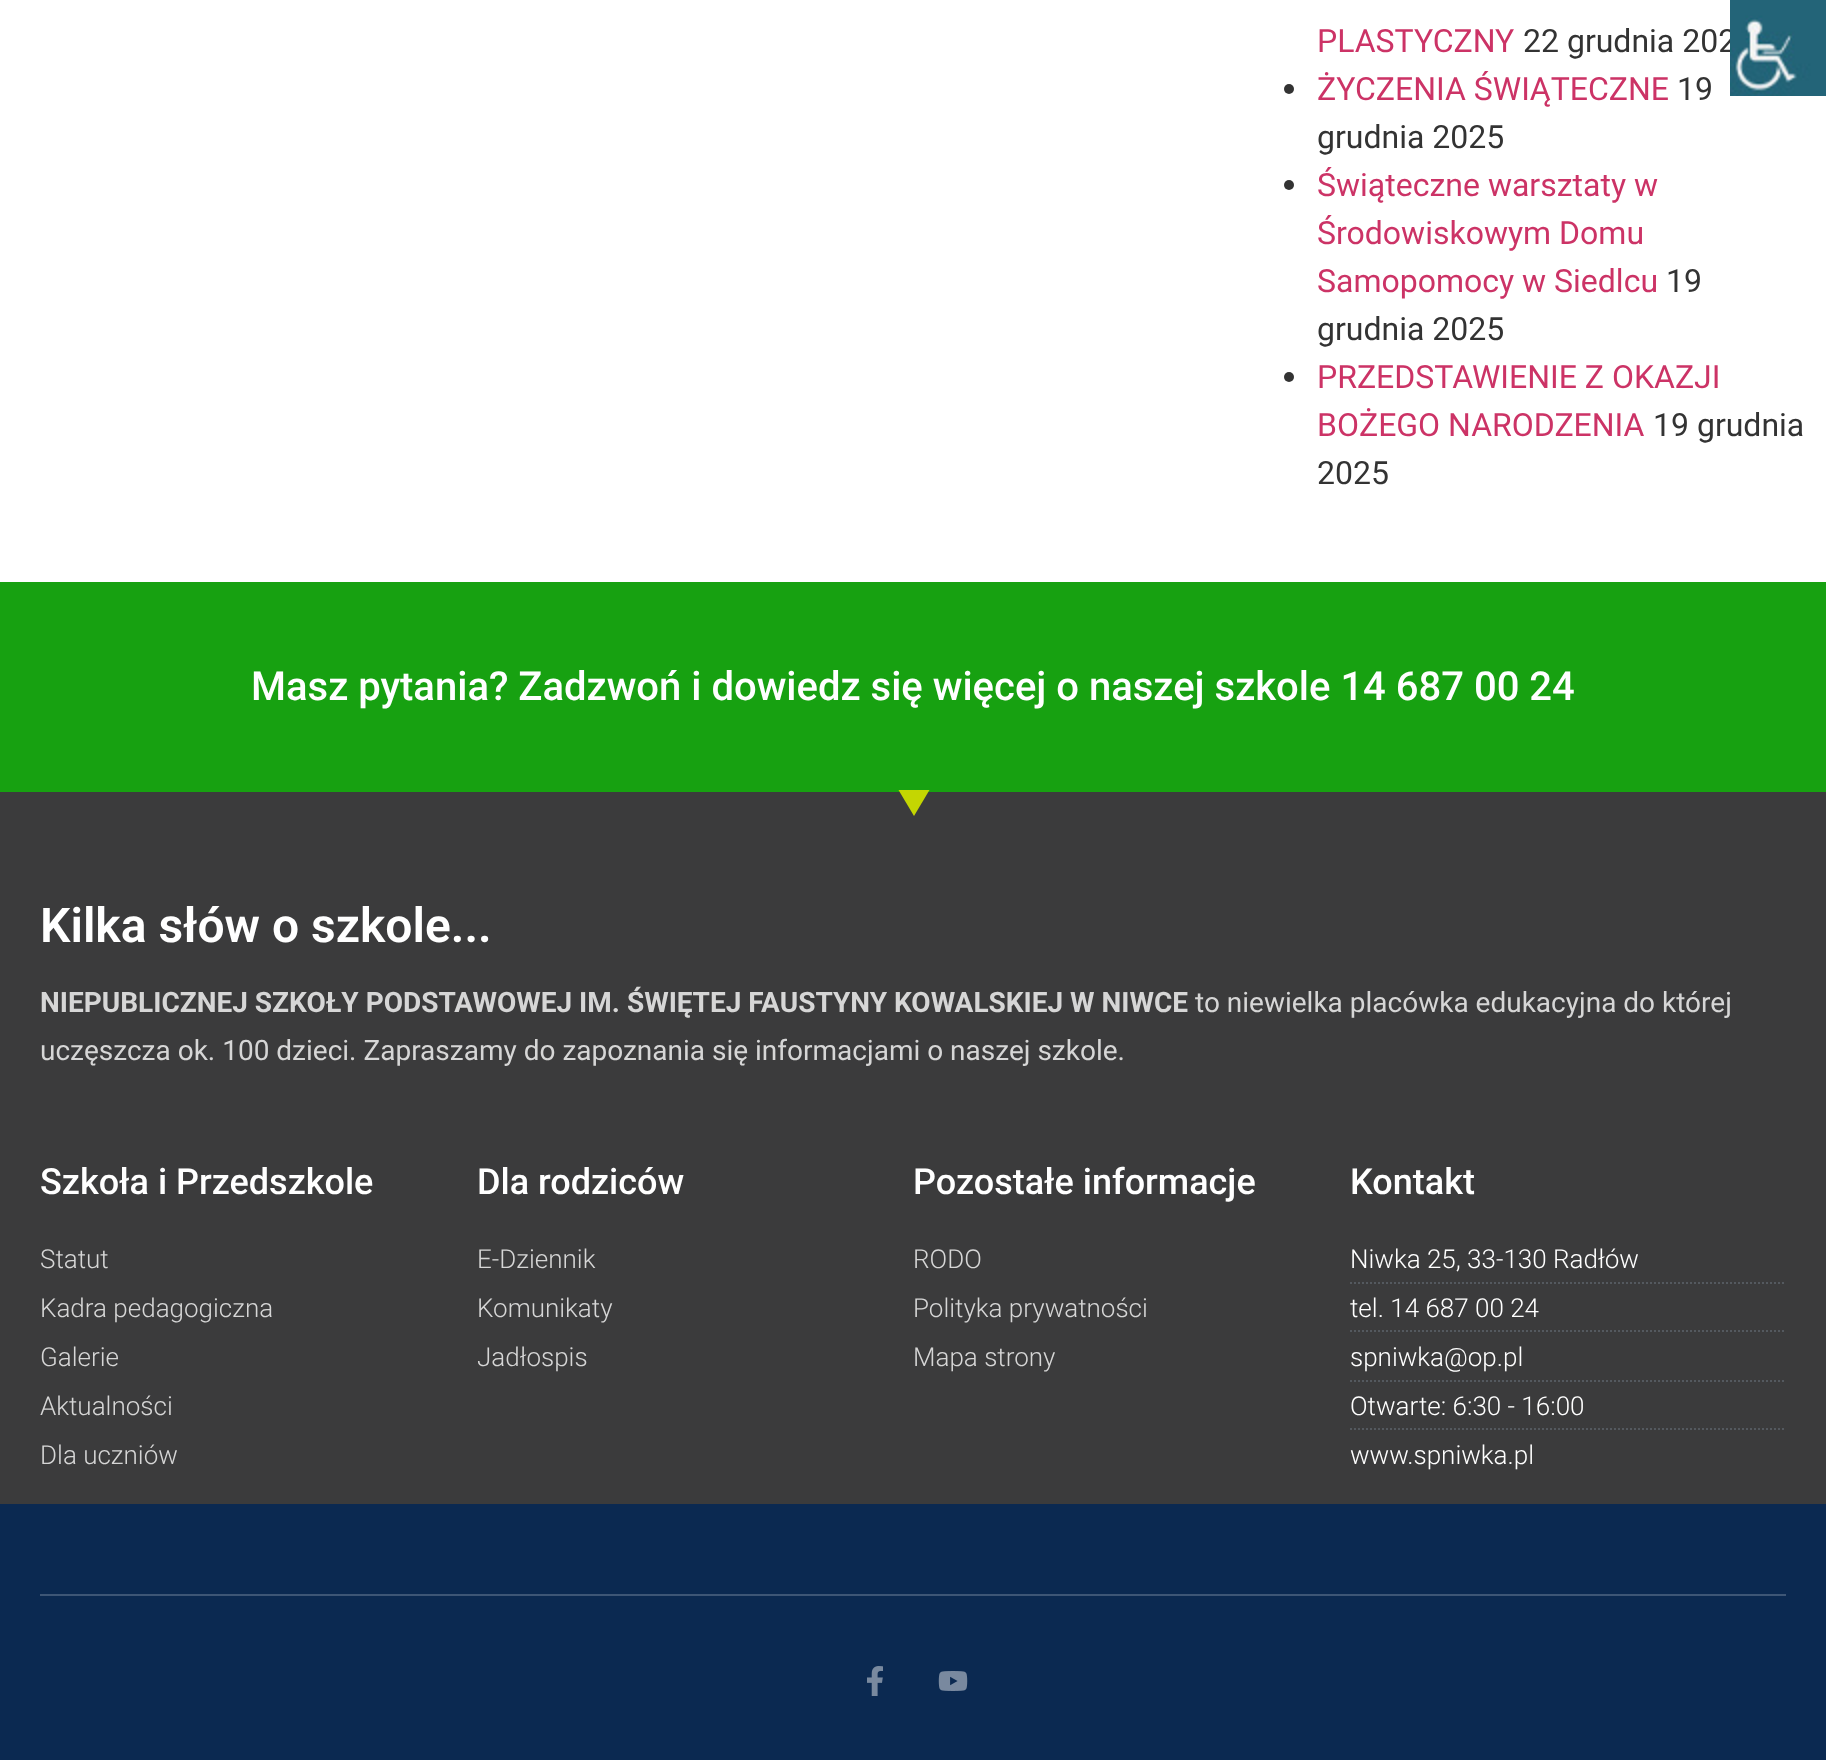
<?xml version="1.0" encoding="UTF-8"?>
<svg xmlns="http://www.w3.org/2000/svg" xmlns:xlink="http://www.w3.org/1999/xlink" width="1826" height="1760">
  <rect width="100%" height="100%" fill="#ffffff" />
  <circle cx="1289" cy="89" r="5" fill="#333333" />
  <circle cx="1289" cy="185" r="5" fill="#333333" />
  <circle cx="1289" cy="377" r="5" fill="#333333" />
  <rect y="582" width="1826" height="210" fill="#17a111" />
  <rect y="792" width="1826" height="712" fill="#3b3b3c" />
  <path d="M 914 816 l -15.5 -26 h 31 z" fill="#c4d602" />
  <path d="M 1350 1283 h 436" fill="none" stroke="#54595f" stroke-width="2" stroke-dasharray="2 2" />
  <path d="M 1350 1331 h 436" fill="none" stroke="#54595f" stroke-width="2" stroke-dasharray="2 2" />
  <path d="M 1350 1381 h 436" fill="none" stroke="#54595f" stroke-width="2" stroke-dasharray="2 2" />
  <path d="M 1350 1429 h 436" fill="none" stroke="#54595f" stroke-width="2" stroke-dasharray="2 2" />
  <rect y="1504" width="1826" height="256" fill="#0b2951" />
  <rect x="40" y="1594" width="1746" height="2" fill="#3e5676" />
  <image x="867" y="1666" width="16" height="30" xlink:href="image2.png" />
  <image x="938" y="1671" width="30" height="20" xlink:href="image3.png" />
  <text x="1317" y="52" style="font-family: Roboto; font-size: 32px; fill: #cc3366">PLASTYCZNY</text>
  <text x="1523" y="52" style="font-family: Roboto; font-size: 32px; fill: #333333">22 grudnia 202</text>
  <image x="1730" y="0" width="96" height="96" xlink:href="image1.png" />
  <text x="1317" y="100" style="font-family: Roboto; font-size: 32px; fill: #cc3366">ŻYCZENIA ŚWIĄTECZNE</text>
  <text x="1677" y="100" style="font-family: Roboto; font-size: 32px; fill: #333333">19</text>
  <text x="1317" y="148" style="font-family: Roboto; font-size: 32px; fill: #333333">grudnia 2025</text>
  <text x="1317" y="196" style="font-family: Roboto; font-size: 32px; fill: #cc3366">Świąteczne warsztaty w</text>
  <text x="1317" y="244" style="font-family: Roboto; font-size: 32px; fill: #cc3366">Środowiskowym Domu</text>
  <text x="1317" y="292" style="font-family: Roboto; font-size: 32px; fill: #cc3366">Samopomocy w Siedlcu</text>
  <text x="1666" y="292" style="font-family: Roboto; font-size: 32px; fill: #333333">19</text>
  <text x="1317" y="340" style="font-family: Roboto; font-size: 32px; fill: #333333">grudnia 2025</text>
  <text x="1317" y="388" style="font-family: Roboto; font-size: 32px; fill: #cc3366">PRZEDSTAWIENIE Z OKAZJI</text>
  <text x="1317" y="436" style="font-family: Roboto; font-size: 32px; fill: #cc3366">BOŻEGO NARODZENIA</text>
  <text x="1653" y="436" style="font-family: Roboto; font-size: 32px; fill: #333333">19 grudnia</text>
  <text x="1317" y="484" style="font-family: Roboto; font-size: 32px; fill: #333333">2025</text>
  <text x="251" y="700" style="font-family: Roboto; font-size: 40px; font-weight: 500; fill: #ffffff">Masz pytania? Zadzwoń i dowiedz się więcej o naszej szkole 14 687 00 24</text>
  <text x="40" y="942" style="font-family: Roboto; font-size: 48px; font-weight: 600; fill: #ffffff">Kilka słów o szkole...</text>
  <text x="40" y="1012" style="font-family: Roboto; font-size: 28px; font-weight: bold; fill: #d6d6d6">NIEPUBLICZNEJ SZKOŁY PODSTAWOWEJ IM. ŚWIĘTEJ FAUSTYNY KOWALSKIEJ W NIWCE</text>
  <text x="1195" y="1012" style="font-family: Roboto; font-size: 28px; fill: #d6d6d6">to niewielka placówka edukacyjna do której</text>
  <text x="40" y="1060" style="font-family: Roboto; font-size: 28px; fill: #d6d6d6">uczęszcza ok. 100 dzieci. Zapraszamy do zapoznania się informacjami o naszej szkole.</text>
  <text x="40" y="1194" style="font-family: Roboto; font-size: 36px; font-weight: 500; fill: #ffffff">Szkoła i Przedszkole</text>
  <text x="40" y="1268" style="font-family: Roboto; font-size: 26px; font-weight: 300; fill: #d6d6d6">Statut</text>
  <text x="40" y="1317" style="font-family: Roboto; font-size: 26px; font-weight: 300; fill: #d6d6d6">Kadra pedagogiczna</text>
  <text x="40" y="1366" style="font-family: Roboto; font-size: 26px; font-weight: 300; fill: #d6d6d6">Galerie</text>
  <text x="40" y="1415" style="font-family: Roboto; font-size: 26px; font-weight: 300; fill: #d6d6d6">Aktualności</text>
  <text x="40" y="1464" style="font-family: Roboto; font-size: 26px; font-weight: 300; fill: #d6d6d6">Dla uczniów</text>
  <text x="477" y="1194" style="font-family: Roboto; font-size: 36px; font-weight: 500; fill: #ffffff">Dla rodziców</text>
  <text x="477" y="1268" style="font-family: Roboto; font-size: 26px; font-weight: 300; fill: #d6d6d6">E-Dziennik</text>
  <text x="477" y="1317" style="font-family: Roboto; font-size: 26px; font-weight: 300; fill: #d6d6d6">Komunikaty</text>
  <text x="477" y="1366" style="font-family: Roboto; font-size: 26px; font-weight: 300; fill: #d6d6d6">Jadłospis</text>
  <text x="913" y="1194" style="font-family: Roboto; font-size: 36px; font-weight: 500; fill: #ffffff">Pozostałe informacje</text>
  <text x="913" y="1268" style="font-family: Roboto; font-size: 26px; font-weight: 300; fill: #d6d6d6">RODO</text>
  <text x="913" y="1317" style="font-family: Roboto; font-size: 26px; font-weight: 300; fill: #d6d6d6">Polityka prywatności</text>
  <text x="913" y="1366" style="font-family: Roboto; font-size: 26px; font-weight: 300; fill: #d6d6d6">Mapa strony</text>
  <text x="1350" y="1194" style="font-family: Roboto; font-size: 36px; font-weight: 500; fill: #ffffff">Kontakt</text>
  <text x="1350" y="1268" style="font-family: Roboto; font-size: 26px; font-weight: 300; fill: #ffffff">Niwka 25, 33-130 Radłów</text>
  <text x="1350" y="1317" style="font-family: Roboto; font-size: 26px; font-weight: 300; fill: #ffffff">tel. 14 687 00 24</text>
  <text x="1350" y="1366" style="font-family: Roboto; font-size: 26px; font-weight: 300; fill: #ffffff">spniwka@op.pl</text>
  <text x="1350" y="1415" style="font-family: Roboto; font-size: 26px; font-weight: 300; fill: #ffffff">Otwarte: 6:30 - 16:00</text>
  <text x="1350" y="1464" style="font-family: Roboto; font-size: 26px; font-weight: 300; fill: #ffffff">www.spniwka.pl</text>
</svg>
